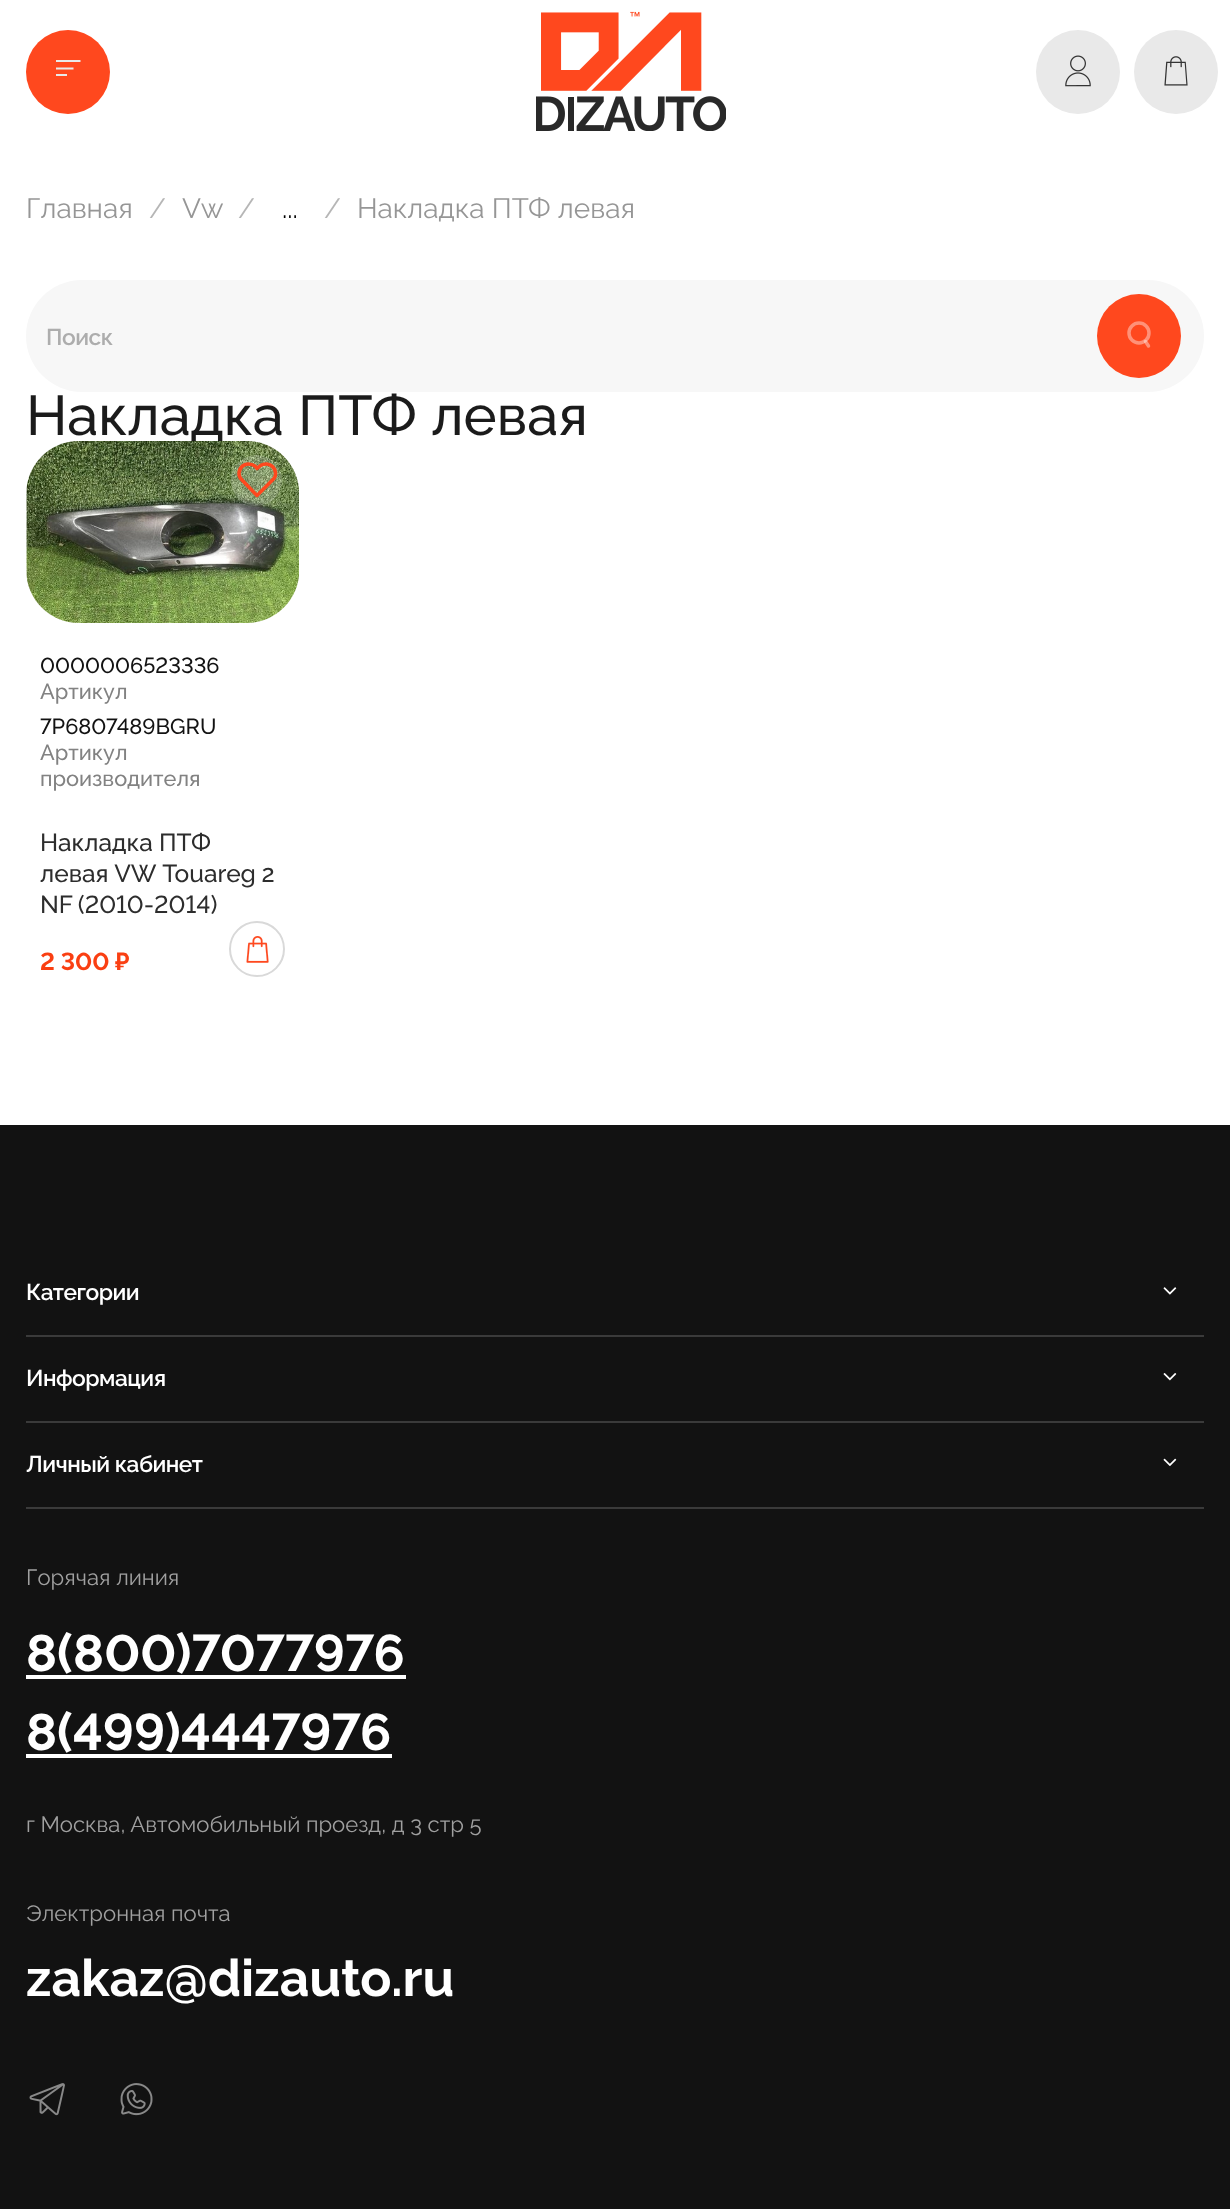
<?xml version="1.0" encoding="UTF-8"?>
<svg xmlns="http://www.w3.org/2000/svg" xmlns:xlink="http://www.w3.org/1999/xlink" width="1230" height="2209">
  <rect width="100%" height="100%" fill="#ffffff" />
  <circle cx="68" cy="72" r="42" fill="#ff481e" />
  <path d="M 56 61 h 24.5 m -24.5 7.5 h 17.5 m -17.5 6.5 h 11" fill="none" stroke="#e9e9e9" stroke-width="1.8" />
  <image x="541" y="11" width="161" height="80" xlink:href="image1.png" />
  <image x="536" y="96" width="190" height="35" xlink:href="image2.png" />
  <circle cx="1078" cy="72" r="42" fill="#e9e9e9" />
  <image x="1065" y="55" width="26" height="32" xlink:href="image3.png" />
  <circle cx="1176" cy="72" r="42" fill="#e9e9e9" />
  <image x="1164" y="56" width="24" height="30" xlink:href="image4.png" />
  <rect x="26" y="280" width="1178" height="112" rx="56" fill="#f7f7f7" />
  <circle cx="1139" cy="336" r="42" fill="#ff481e" />
  <circle cx="1139" cy="333" r="10" fill="none" stroke="#ff9178" stroke-width="3.5" />
  <path d="M 1145.5 341.5 l 3 4.5" fill="none" stroke="#ffffff" stroke-opacity="0.4" stroke-width="3.5" stroke-linecap="round" />
  <circle cx="257" cy="949" r="27" fill="none" stroke="#d9d9d9" stroke-width="2" />
  <image x="246" y="936" width="23" height="27" xlink:href="image6.png" />
  <rect y="1125" width="1230" height="1084" fill="#121212" />
  <rect x="26" y="1335" width="1178" height="2" fill="#3a3a3a" />
  <image x="1163" y="1287" width="14" height="8" xlink:href="image7.png" />
  <rect x="26" y="1421" width="1178" height="2" fill="#3a3a3a" />
  <image x="1163" y="1373" width="14" height="8" xlink:href="image8.png" />
  <rect x="26" y="1507" width="1178" height="2" fill="#3a3a3a" />
  <image x="1163" y="1458" width="14" height="8" xlink:href="image9.png" />
  <rect x="26" y="1675" width="380" height="4" fill="#ffffff" />
  <rect x="26" y="1754" width="366" height="4" fill="#ffffff" />
  <image x="29" y="2083" width="36" height="33" xlink:href="image10.png" />
  <image x="120" y="2083" width="33" height="33" xlink:href="image11.png" />
  <text x="26" y="218" style="font-family: Raleway; font-size: 28px; fill: #969696">Главная</text>
  <text x="149" y="218" style="font-family: Raleway; font-size: 28px; fill: #b6b6b6">/</text>
  <text x="182" y="218" style="font-family: Raleway; font-size: 28px; fill: #969696">Vw</text>
  <text x="238" y="218" style="font-family: Raleway; font-size: 28px; fill: #b6b6b6">/</text>
  <text x="282" y="218" style="font-family: Raleway; font-size: 28px; fill: #000000">...</text>
  <text x="324" y="218" style="font-family: Raleway; font-size: 28px; fill: #b6b6b6">/</text>
  <text x="357" y="218" style="font-family: Raleway; font-size: 28px; fill: #969696">Накладка ПТФ левая</text>
  <text x="46" y="345" style="font-family: Raleway; font-size: 22.75px; font-weight: 600; letter-spacing: -0.5px; fill: #adadad">Поиск</text>
  <text x="26" y="435" style="font-family: Raleway; font-size: 56px; font-weight: 500; fill: #1b1b1b">Накладка ПТФ левая</text>
  <rect x="191" y="441" width="32" height="1" fill="#ffffff" />
  <image x="26" y="441" width="273" height="182" xlink:href="image5.png" />
  <circle cx="256.5" cy="480.5" r="25.5" fill="#ffffff" fill-opacity="0.2" />
  <path d="M 272.5 466.5 c -3 -3 -8 -3.5 -12 -1 l -3.5 3 l -1.5 -2 c -4 -3.5 -10 -3.5 -13.5 0 c -4 4 -4 10 0 13.5 l 15 15.5 l 17 -17 c 2.5 -3.5 2 -8.5 -1.5 -12 z" fill="none" stroke="#ff481e" stroke-width="3.5" stroke-linecap="round" stroke-linejoin="round" />
  <text x="40" y="673" style="font-family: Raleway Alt; font-size: 21.75px; font-weight: 500; fill: #121212">0000006523336</text>
  <text x="40" y="699" style="font-family: Raleway; font-size: 21.75px; font-weight: 500; fill: #828282">Артикул</text>
  <text x="40" y="734" style="font-family: Raleway Alt; font-size: 21.75px; font-weight: 500; fill: #121212">7P6807489BGRU</text>
  <text x="40" y="760" style="font-family: Raleway; font-size: 21.75px; font-weight: 500; fill: #828282">Артикул</text>
  <text x="40" y="786" style="font-family: Raleway; font-size: 21.75px; font-weight: 500; fill: #828282">производителя</text>
  <text x="40" y="851" style="font-family: Raleway; font-size: 24.5px; font-weight: 500; fill: #2d2d2d">Накладка ПТФ</text>
  <text x="40" y="882" word-spacing="-0.5" style="font-family: Raleway; font-size: 24.5px; font-weight: 500; fill: #2d2d2d">левая VW Touareg 2</text>
  <text x="40" y="913" word-spacing="-1" style="font-family: Raleway Alt; font-size: 24.5px; font-weight: 500; fill: #2d2d2d">NF (2010-2014)</text>
  <text x="40" y="970" style="font-family: Raleway Alt; font-size: 24.5px; font-weight: bold; fill: #fa3f12">2 300 ₽</text>
  <text x="26" y="1300" style="font-family: Raleway; font-size: 22.75px; font-weight: 600; letter-spacing: -0.5px; fill: #ffffff">Категории</text>
  <text x="26" y="1386" style="font-family: Raleway; font-size: 22.75px; font-weight: 600; letter-spacing: -0.5px; fill: #ffffff">Информация</text>
  <text x="26" y="1472" style="font-family: Raleway; font-size: 22.75px; font-weight: 600; letter-spacing: -0.5px; fill: #ffffff">Личный кабинет</text>
  <text x="26" y="1585" style="font-family: Raleway; font-size: 22.1px; fill: #a0a0a0">Горячая линия</text>
  <text x="26" y="1671" style="font-family: Raleway Alt; font-size: 51.5px; font-weight: bold; fill: #ffffff">8(800)7077976</text>
  <text x="26" y="1750" style="font-family: Raleway Alt; font-size: 51.5px; font-weight: bold; fill: #ffffff">8(499)4447976</text>
  <text x="26" y="1832" style="font-family: Raleway; font-size: 22.1px; fill: #a0a0a0">г Москва, Автомобильный проезд, д 3 стр 5</text>
  <text x="26" y="1921" style="font-family: Raleway; font-size: 22.1px; fill: #a0a0a0">Электронная почта</text>
  <text x="26" y="1996" style="font-family: Raleway; font-size: 51.5px; font-weight: bold; fill: #ffffff">zakaz@dizauto.ru</text>
</svg>
